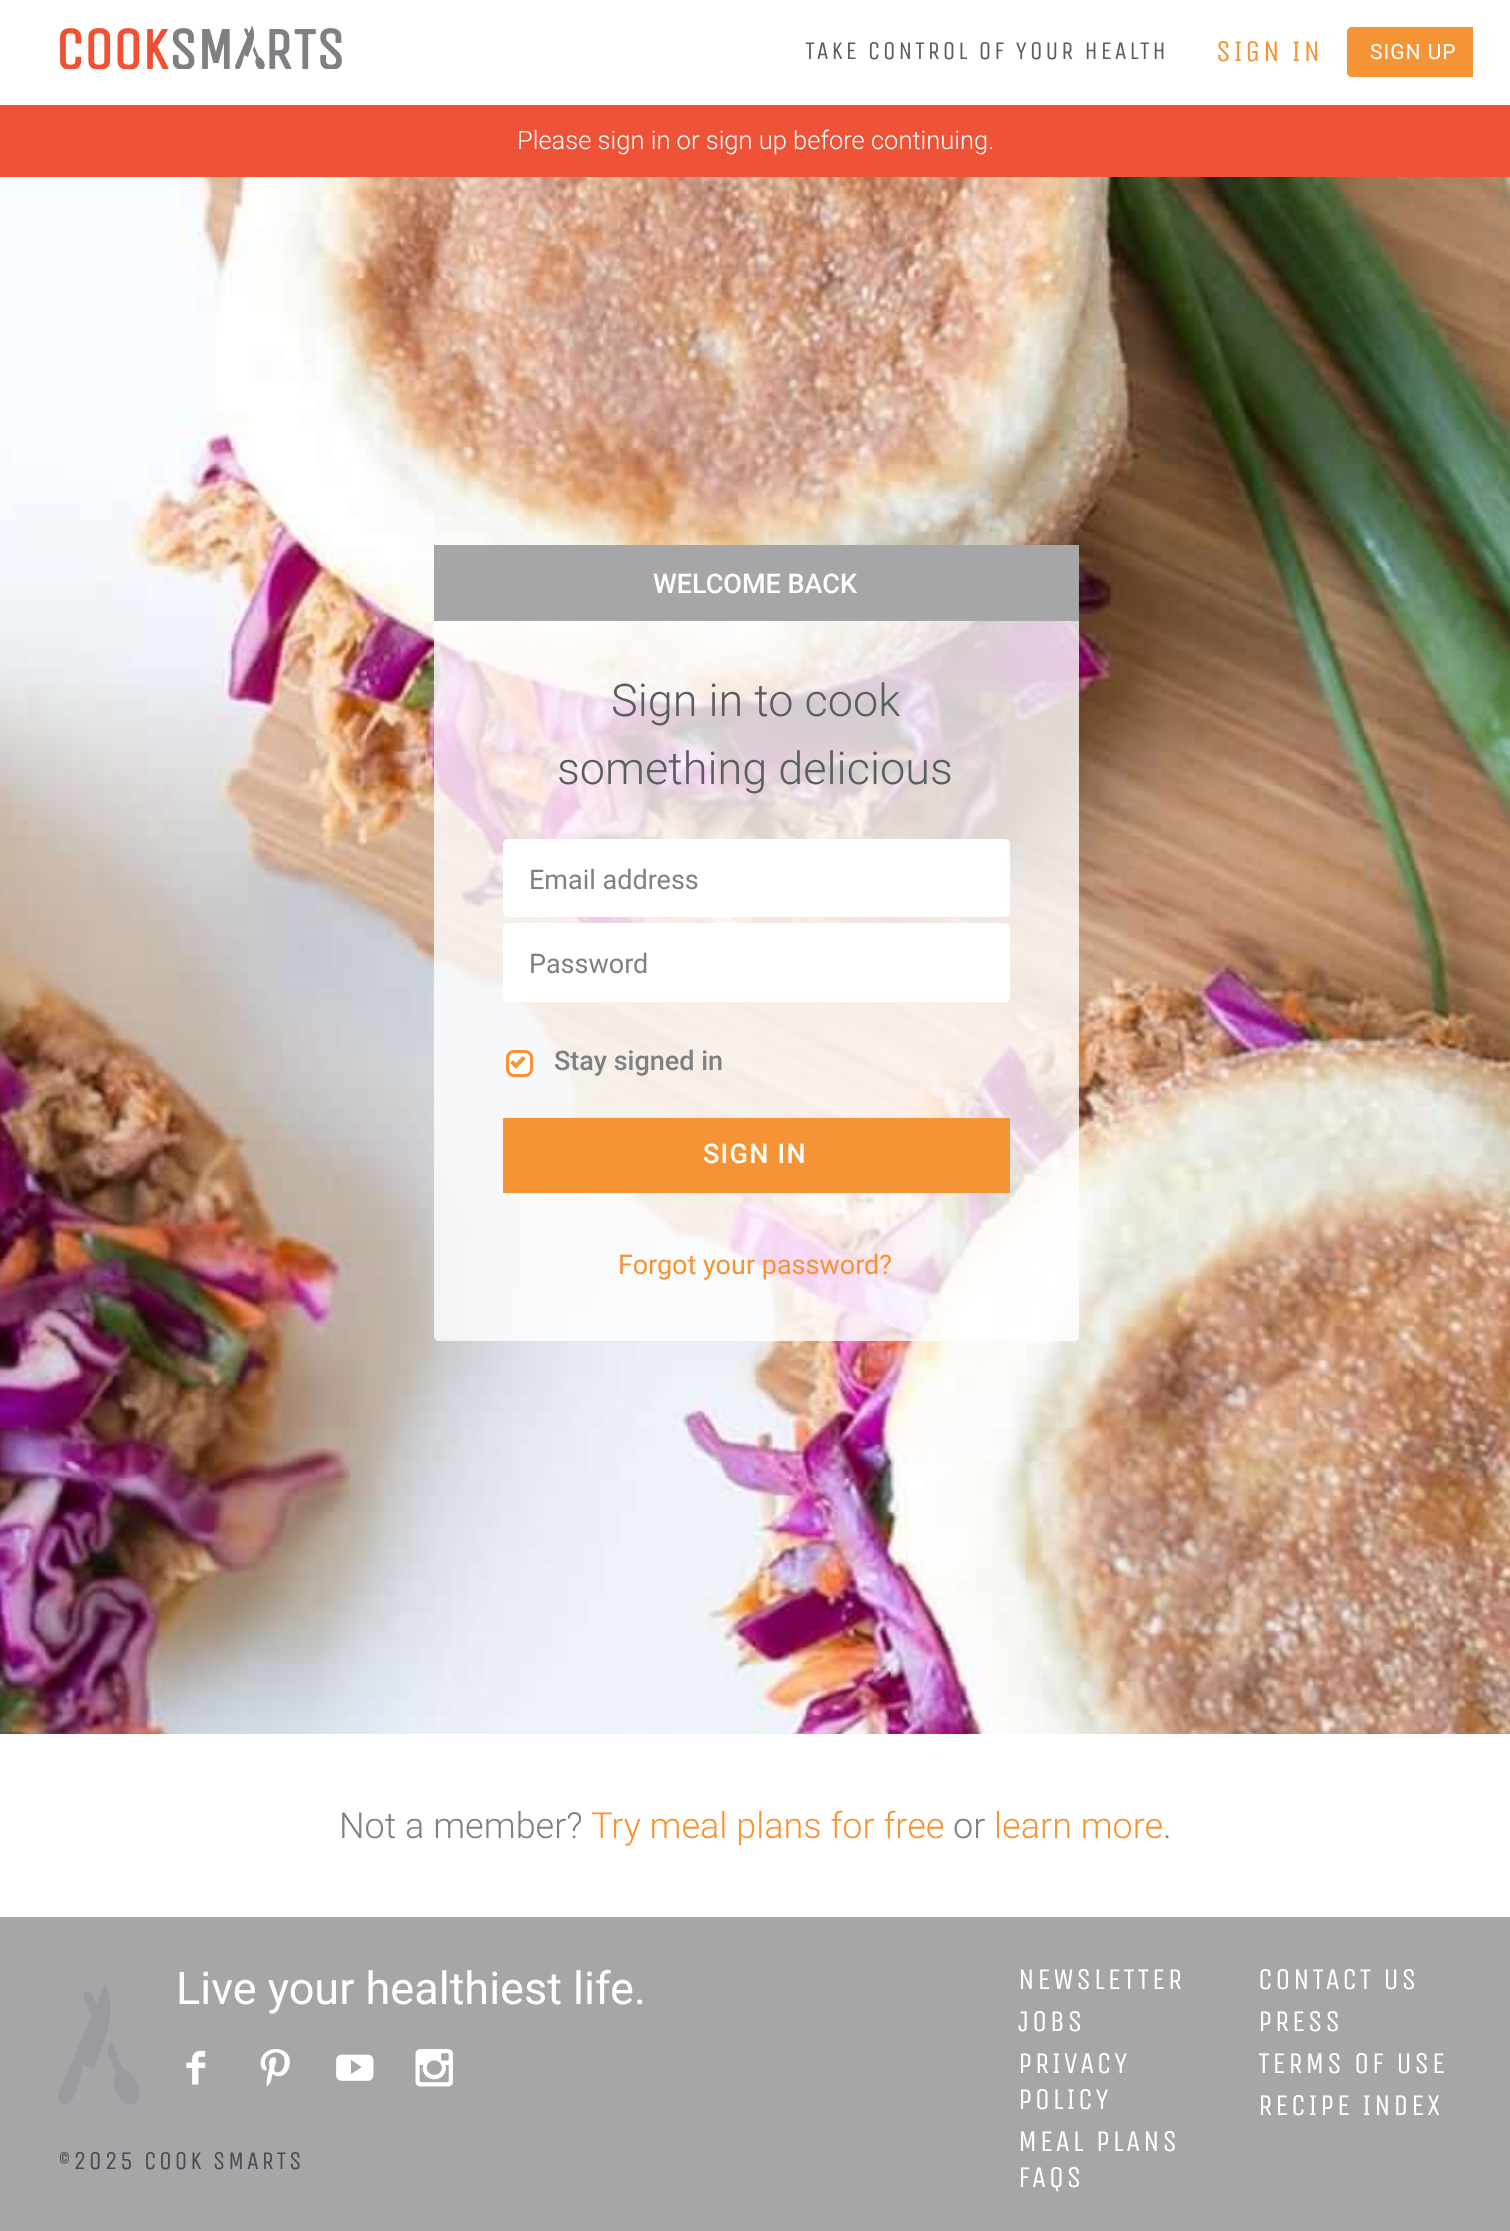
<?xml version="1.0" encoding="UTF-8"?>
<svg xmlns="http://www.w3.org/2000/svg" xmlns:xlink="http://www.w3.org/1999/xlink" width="1510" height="2231">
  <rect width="100%" height="100%" fill="#ffffff" />
  <image x="60" y="26" width="282" height="43" xlink:href="image1.png" />
  <path d="M 1352 27 h 121 v 50 h -121 c -3 0 -5 -2 -5 -5 v -40 c 0 -3 2 -5 5 -5 z" fill="#f59434" />
  <rect y="105" width="1510" height="72" fill="#ee5337" />
  <image x="0" y="177" width="1510" height="1557" xlink:href="image2.png" />
  <rect x="434" y="545" width="645" height="76" fill="#a6a6a9" />
  <path d="M 434 621 h 645 v 715 c 0 3 -2 5 -5 5 h -635 c -3 0 -5 -2 -5 -5 z" fill="#ffffff" fill-opacity="0.8" />
  <rect x="503" y="839" width="507" height="78" rx="5" fill="#ffffff" />
  <rect x="503" y="923" width="507" height="79" rx="5" fill="#ffffff" />
  <rect x="507.5" y="1051.5" width="24" height="24" rx="6.5" fill="none" stroke="#f59434" stroke-width="3" />
  <rect x="506" y="1050" width="27" height="27" rx="8" fill="#ffffff" />
  <image x="510" y="1056" width="16" height="13" xlink:href="image3.png" />
  <rect x="507.5" y="1051.5" width="24" height="24" rx="6.5" fill="none" stroke="#f59434" stroke-width="3" />
  <rect x="503" y="1118" width="507" height="75" fill="#f59434" />
  <rect y="1917" width="1510" height="314" fill="#a6a6a9" />
  <image x="59" y="1984" width="81" height="120" xlink:href="image4.png" />
  <image x="186" y="2050" width="20" height="35" xlink:href="image5.png" />
  <image x="260" y="2049" width="30" height="38" xlink:href="image6.png" />
  <image x="336" y="2054" width="38" height="27" xlink:href="image7.png" />
  <image x="415" y="2049" width="38" height="38" xlink:href="image8.png" />
  <text x="805" y="59" style="font-family: Unica One; font-size: 25.5px; letter-spacing: 2.55px; fill: #5a5d63">TAKE CONTROL OF YOUR HEALTH</text>
  <text x="1216" y="61" style="font-family: Unica One; font-size: 30px; letter-spacing: 2.55px; fill: #f59434">SIGN IN</text>
  <text x="1370" y="59" style="font-family: Roboto; font-size: 21px; letter-spacing: 1px; fill: #ffffff">SIGN UP</text>
  <text x="517" y="149" style="font-family: Roboto; font-size: 25.5px; font-weight: 300; fill: #ffffff">Please sign in or sign up before continuing.</text>
  <text x="653" y="593" style="font-family: Roboto; font-size: 27px; font-weight: 500; fill: #ffffff">WELCOME BACK</text>
  <text x="611" y="716" style="font-family: Roboto; font-size: 45px; font-weight: 300; fill: #5a5d63">Sign in to cook</text>
  <text x="557" y="784" style="font-family: Roboto; font-size: 45px; font-weight: 300; fill: #5a5d63">something delicious</text>
  <text x="529" y="889" style="font-family: Roboto; font-size: 27px; fill: #7e8083">Email address</text>
  <text x="529" y="973" style="font-family: Roboto; font-size: 27px; fill: #7e8083">Password</text>
  <text x="554" y="1070" style="font-family: Roboto; font-size: 27px; font-weight: 500; fill: #7e8083">Stay signed in</text>
  <text x="703" y="1163" style="font-family: Roboto; font-size: 27px; font-weight: 500; letter-spacing: 1.25px; fill: #ffffff">SIGN IN</text>
  <text x="618" y="1274" style="font-family: Roboto; font-size: 27px; fill: #f59434">Forgot your password?</text>
  <text x="339" y="1838" style="font-family: Roboto; font-size: 36px; font-weight: 300; fill: #7e8083">Not a member?</text>
  <text x="591" y="1838" style="font-family: Roboto; font-size: 36px; font-weight: 300; fill: #f59434">Try meal plans for free</text>
  <text x="953" y="1838" style="font-family: Roboto; font-size: 36px; font-weight: 300; fill: #7e8083">or</text>
  <text x="994" y="1838" style="font-family: Roboto; font-size: 36px; font-weight: 300; fill: #f59434">learn more</text>
  <text x="1163" y="1838" style="font-family: Roboto; font-size: 36px; font-weight: 300; fill: #7e8083">.</text>
  <text x="176" y="2004" style="font-family: Roboto; font-size: 45px; fill: #ffffff">Live your healthiest life.</text>
  <text x="58" y="2169" style="font-family: Unica One; font-size: 25.5px; letter-spacing: 2.55px; fill: #4b4c4f">©2025 COOK SMARTS</text>
  <text x="1018" y="1989" style="font-family: Unica One; font-size: 30px; letter-spacing: 2.55px; fill: #ffffff">NEWSLETTER</text>
  <text x="1018" y="2031" style="font-family: Unica One; font-size: 30px; letter-spacing: 2.55px; fill: #ffffff">JOBS</text>
  <text x="1018" y="2073" style="font-family: Unica One; font-size: 30px; letter-spacing: 2.55px; fill: #ffffff">PRIVACY</text>
  <text x="1018" y="2109" style="font-family: Unica One; font-size: 30px; letter-spacing: 2.55px; fill: #ffffff">POLICY</text>
  <text x="1018" y="2151" style="font-family: Unica One; font-size: 30px; letter-spacing: 2.55px; fill: #ffffff">MEAL PLANS</text>
  <text x="1018" y="2187" style="font-family: Unica One; font-size: 30px; letter-spacing: 2.55px; fill: #ffffff">FAQS</text>
  <text x="1258" y="1989" style="font-family: Unica One; font-size: 30px; letter-spacing: 2.55px; fill: #ffffff">CONTACT US</text>
  <text x="1258" y="2031" style="font-family: Unica One; font-size: 30px; letter-spacing: 2.55px; fill: #ffffff">PRESS</text>
  <text x="1258" y="2073" style="font-family: Unica One; font-size: 30px; letter-spacing: 2.55px; fill: #ffffff">TERMS OF USE</text>
  <text x="1258" y="2115" style="font-family: Unica One; font-size: 30px; letter-spacing: 2.55px; fill: #ffffff">RECIPE INDEX</text>
</svg>
